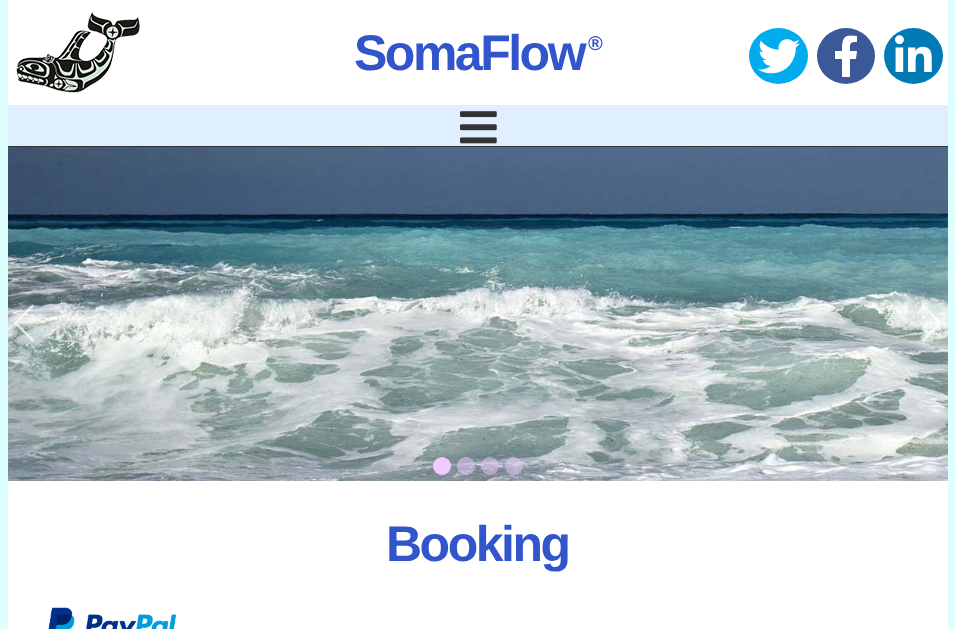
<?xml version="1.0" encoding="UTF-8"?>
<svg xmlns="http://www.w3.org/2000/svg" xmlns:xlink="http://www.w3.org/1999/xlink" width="955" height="629">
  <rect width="100%" height="100%" fill="#ddffff" />
  <rect x="8" width="940" height="105" fill="#ffffff" />
  <image x="16" y="11" width="124" height="82" xlink:href="image1.png" />
  <rect x="8" y="481" width="940" height="148" fill="#ffffff" />
  <rect x="8" y="105" width="940" height="41" fill="#dfefff" />
  <rect x="8" y="146" width="940" height="1" fill="#333333" />
  <image x="460" y="111" width="37" height="33" xlink:href="image2.png" />
  <ellipse cx="778.5" cy="56" rx="29.5" ry="28" fill="#00aced" />
  <image x="758" y="39" width="42" height="35" xlink:href="image3.png" />
  <ellipse cx="846" cy="56" rx="29" ry="28" fill="#3b5998" />
  <path d="M 856 59 h -6 v 18 h -8 v -18 h -7 v -8 h 7 c 0 -14 2 -17 15 -15 v 6 c -8 0 -7 2 -7 9 h 7 z" fill="#ffffff" />
  <ellipse cx="913.5" cy="56" rx="29.5" ry="28" fill="#007bb6" />
  <image x="895" y="35" width="37" height="37" xlink:href="image4.png" />
  <image x="8" y="147" width="940" height="334" xlink:href="image5.png" />
  <image x="13" y="304" width="22" height="38" xlink:href="image6.png" />
  <image x="921" y="304" width="21" height="38" xlink:href="image7.png" />
  <circle cx="442" cy="466" r="9" fill="#eeccff" />
  <circle cx="466" cy="466" r="9" fill="#eeccff" fill-opacity="0.5" />
  <circle cx="490" cy="466" r="9" fill="#eeccff" fill-opacity="0.5" />
  <circle cx="514" cy="466" r="9" fill="#eeccff" fill-opacity="0.5" />
  <image x="48" y="607" width="128" height="22" xlink:href="image8.png" />
  <text x="354" y="70" style="font-family: Liberation Sans; font-size: 50px; font-weight: bold; letter-spacing: -2.5px; fill: #3355cc">SomaFlow</text>
  <text x="588" y="50" style="font-family: Liberation Sans; font-size: 20px; font-weight: bold; letter-spacing: -2.5px; fill: #3355cc">®</text>
  <text x="386" y="561" style="font-family: Liberation Sans; font-size: 50px; font-weight: bold; letter-spacing: -2.5px; fill: #3355cc">Booking</text>
</svg>
